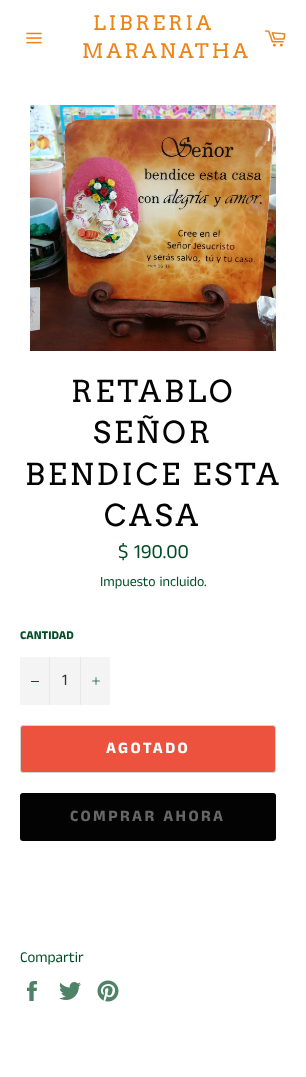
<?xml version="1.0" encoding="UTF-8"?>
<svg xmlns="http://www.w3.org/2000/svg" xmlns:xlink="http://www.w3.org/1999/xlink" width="306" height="1077">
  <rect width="100%" height="100%" fill="#ffffff" />
  <image x="26" y="32" width="16" height="12" xlink:href="image1.png" />
  <image x="264" y="30" width="22" height="17" xlink:href="image2.png" />
  <image x="30" y="105" width="246" height="246" xlink:href="image3.png" />
  <rect x="20" y="657" width="90" height="48" fill="#f4f4f4" />
  <rect x="49" y="657" width="1" height="48" fill="#e7e7e7" />
  <rect x="31" y="681" width="8" height="1" fill="#034d26" />
  <rect x="80" y="657" width="1" height="48" fill="#e7e7e7" />
  <image x="92" y="677" width="8" height="8" xlink:href="image4.png" />
  <rect x="20.5" y="725.5" width="255" height="47" rx="2.5" fill="#ec523e" stroke="#d5d5d5" />
  <rect x="20" y="793" width="256" height="48" rx="3" fill="#030303" />
  <image x="27" y="981" width="10" height="20" xlink:href="image5.png" />
  <image x="59" y="982" width="22" height="18" xlink:href="image6.png" />
  <image x="97" y="980" width="22" height="22" xlink:href="image7.png" />
  <text x="93" y="30" style="font-family: Arvo; font-size: 20px; letter-spacing: 3px; fill: #ed8416">LIBRERIA</text>
  <text x="82" y="58" style="font-family: Arvo; font-size: 20px; letter-spacing: 3px; fill: #ed8416">MARANATHA</text>
  <text x="71" y="402" style="font-family: Arvo; font-size: 30px; letter-spacing: 3px; fill: #030303">RETABLO</text>
  <text x="93" y="443" style="font-family: Arvo; font-size: 30px; letter-spacing: 3px; fill: #030303">SEÑOR</text>
  <text x="25" y="485" style="font-family: Arvo; font-size: 30px; letter-spacing: 3px; fill: #030303">BENDICE ESTA</text>
  <text x="104" y="526" style="font-family: Arvo; font-size: 30px; letter-spacing: 3px; fill: #030303">CASA</text>
  <text x="118" y="558" style="font-family: Anek Tamil; font-size: 20px; fill: #034d26">$ 190.00</text>
  <text x="100" y="586" style="font-family: Anek Tamil; font-size: 14px; fill: #034d26">Impuesto incluido.</text>
  <text x="20" y="639" style="font-family: Anek Tamil; font-size: 12px; font-weight: bold; fill: #034d26">CANTIDAD</text>
  <text x="62" y="685" style="font-family: Anek Tamil; font-size: 16px; fill: #333333">1</text>
  <text x="106" y="753" style="font-family: Anek Tamil; font-size: 16px; font-weight: bold; letter-spacing: 2.4px; fill: #ffffff">AGOTADO</text>
  <text x="70" y="821" style="font-family: Anek Tamil; font-size: 16px; font-weight: bold; letter-spacing: 2.4px; fill: #666666">COMPRAR AHORA</text>
  <text x="20" y="962" style="font-family: Anek Tamil; font-size: 15px; fill: #034d26">Compartir</text>
</svg>
